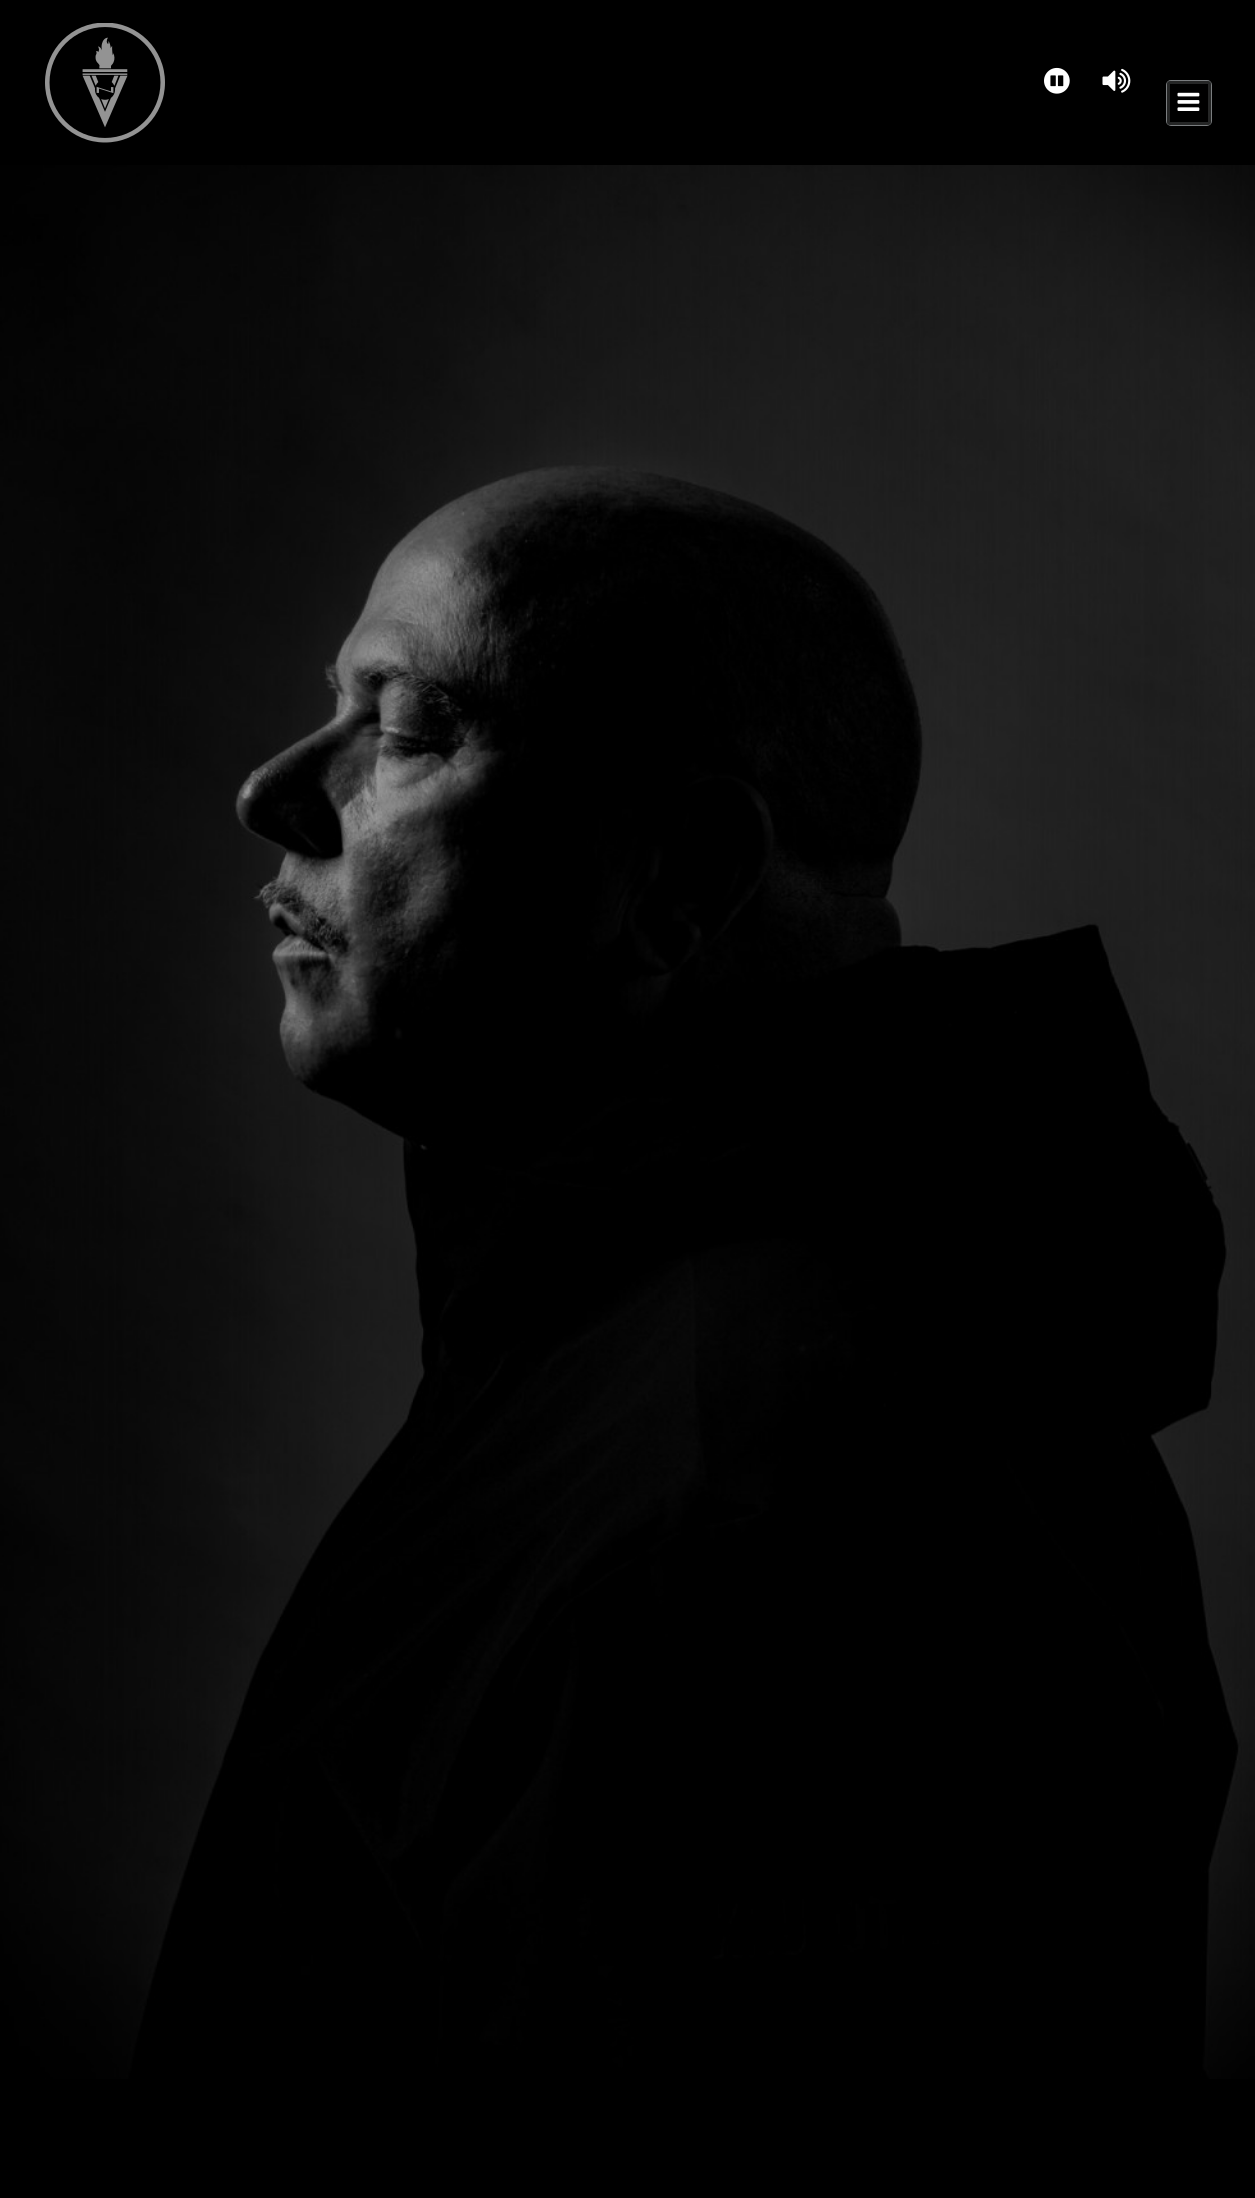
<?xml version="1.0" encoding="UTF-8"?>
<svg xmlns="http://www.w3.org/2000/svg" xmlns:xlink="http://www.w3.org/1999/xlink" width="1255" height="2198">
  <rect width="100%" height="100%" fill="#000000" />
  <image x="45" y="23" width="120" height="120" xlink:href="image1.png" />
  <rect x="1167" y="81" width="44" height="44" rx="4" fill="none" stroke="#7a7d7f" stroke-width="2" />
  <rect x="1168.5" y="82.5" width="41" height="41" rx="1.5" fill="#000000" stroke="#252626" stroke-width="3" />
  <image x="1177" y="92" width="23" height="19" xlink:href="image2.png" />
  <image x="1044" y="67" width="26" height="27" xlink:href="image3.png" />
  <image x="1102" y="68" width="29" height="25" xlink:href="image4.png" />
  <image x="0" y="165" width="1255" height="1914" xlink:href="image5.png" />
</svg>
